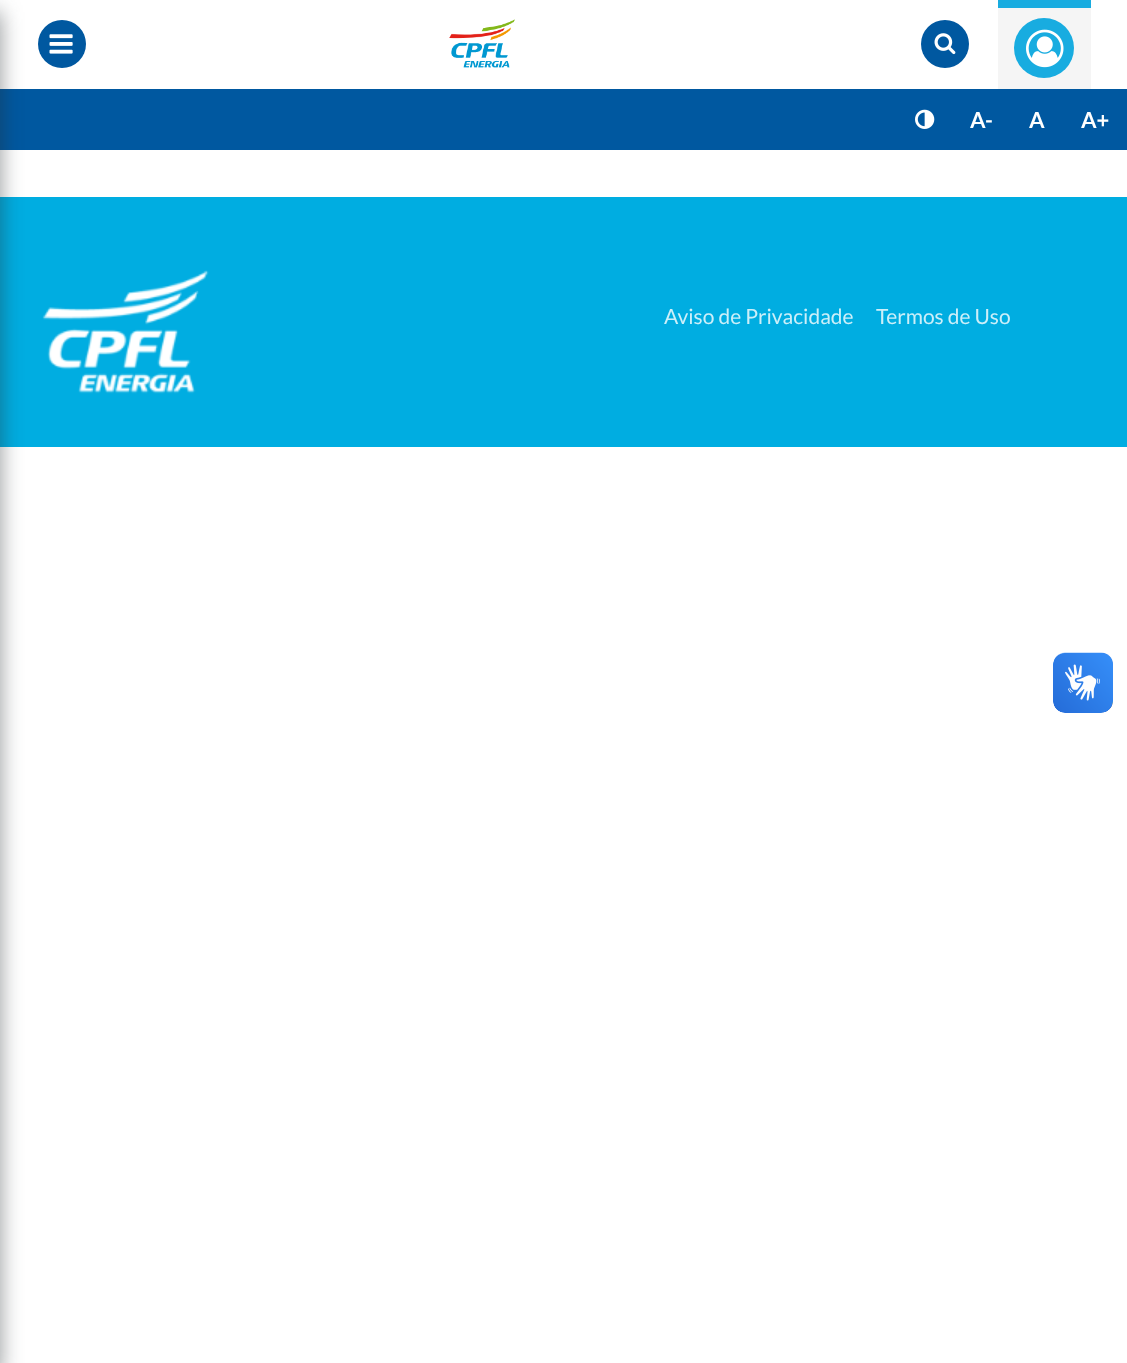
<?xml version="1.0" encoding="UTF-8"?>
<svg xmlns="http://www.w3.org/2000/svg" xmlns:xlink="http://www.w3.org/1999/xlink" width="1127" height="1363">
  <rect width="100%" height="100%" fill="#ffffff" />
  <rect y="89" width="1127" height="61" fill="#0058a0" />
  <rect y="197" width="1127" height="250" fill="#00ade1" />
  <rect x="-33" y="12" width="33" height="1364" fill="#252b30" fill-opacity="0.5" filter="blur(11px)" />
  <circle cx="62" cy="44" r="24" fill="#0058a0" />
  <image x="49" y="34" width="24" height="20" xlink:href="image1.png" />
  <image x="449" y="19" width="66" height="49" xlink:href="image2.png" />
  <circle cx="945" cy="44" r="24" fill="#0058a0" />
  <image x="934" y="33" width="22" height="22" xlink:href="image3.png" />
  <rect x="998" y="8" width="93" height="81" fill="#f5f5f5" />
  <rect x="998" width="93" height="8" fill="#18ace0" />
  <circle cx="1044" cy="48" r="30" fill="#18ace0" />
  <image x="1026" y="29" width="38" height="39" xlink:href="image4.png" />
  <image x="915" y="109" width="20" height="20" xlink:href="image5.png" />
  <image x="42" y="270" width="167" height="124" xlink:href="image6.png" />
  <image x="1053" y="652" width="60" height="61" xlink:href="image7.png" />
  <image x="1053" y="653" width="60" height="60" xlink:href="image8.png" />
  <text x="970" y="128" style="font-family: Lato; font-size: 22px; font-weight: bold; fill: #ffffff">A-</text>
  <text x="1029" y="128" style="font-family: Lato; font-size: 22px; font-weight: bold; fill: #ffffff">A</text>
  <text x="1081" y="128" style="font-family: Lato; font-size: 22px; font-weight: bold; fill: #ffffff">A+</text>
  <text x="664" y="324" style="font-family: Lato; font-size: 21px; fill: #cceff9">Aviso de Privacidade</text>
  <text x="876" y="324" style="font-family: Lato; font-size: 21px; fill: #cceff9">Termos de Uso</text>
</svg>
